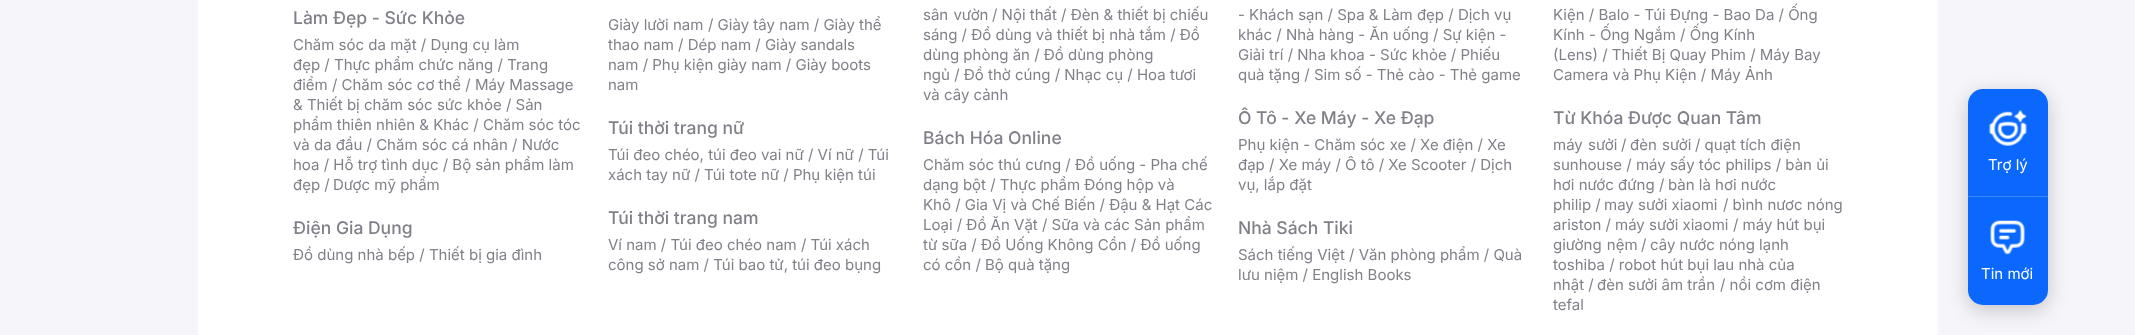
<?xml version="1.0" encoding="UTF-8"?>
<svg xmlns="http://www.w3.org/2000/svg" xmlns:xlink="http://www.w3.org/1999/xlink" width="2135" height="335">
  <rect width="100%" height="100%" fill="#f5f5fa" />
  <rect x="198" width="1740" height="335" fill="#ffffff" />
  <rect x="1968" y="94" width="80" height="216" rx="15" fill="#000000" fill-opacity="0.2" filter="blur(10px)" />
  <rect x="1968" y="89" width="80" height="216" rx="15" fill="#0a68ff" />
  <image x="1988" y="109" width="39" height="37" xlink:href="image1.png" />
  <rect x="1968" y="196" width="80" height="1" fill="#3b86ff" />
  <image x="1990" y="220" width="35" height="35" xlink:href="image2.png" />
  <text x="293" y="24" style="font-family: Inter; font-size: 17.5px; font-weight: 500; fill: #808089">Làm Đẹp - Sức Khỏe</text>
  <text x="293" y="50" style="font-family: Inter; font-size: 15px; fill: #808089">Chăm sóc da mặt / Dụng cụ làm</text>
  <text x="293" y="70" style="font-family: Inter; font-size: 15px; fill: #808089">đẹp / Thực phẩm chức năng / Trang</text>
  <text x="293" y="90" style="font-family: Inter; font-size: 15px; fill: #808089">điểm / Chăm sóc cơ thể / Máy Massage</text>
  <text x="293" y="110" style="font-family: Inter; font-size: 15px; fill: #808089">&amp; Thiết bị chăm sóc sức khỏe / Sản</text>
  <text x="293" y="130" style="font-family: Inter; font-size: 15px; fill: #808089">phẩm thiên nhiên &amp; Khác / Chăm sóc tóc</text>
  <text x="293" y="150" style="font-family: Inter; font-size: 15px; fill: #808089">và da đầu / Chăm sóc cá nhân / Nước</text>
  <text x="293" y="170" style="font-family: Inter; font-size: 15px; fill: #808089">hoa / Hỗ trợ tình dục / Bộ sản phẩm làm</text>
  <text x="293" y="190" style="font-family: Inter; font-size: 15px; fill: #808089">đẹp /</text>
  <text x="333" y="190" style="font-family: Inter; font-size: 15px; fill: #808089">Dược mỹ phẩm</text>
  <text x="293" y="234" style="font-family: Inter; font-size: 17.5px; font-weight: 500; fill: #808089">Điện Gia Dụng</text>
  <text x="293" y="260" style="font-family: Inter; font-size: 15px; fill: #808089">Đồ dùng nhà bếp / Thiết bị gia đình</text>
  <text x="608" y="30" style="font-family: Inter; font-size: 15px; fill: #808089">Giày lười nam</text>
  <text x="708" y="30" style="font-family: Inter; font-size: 15px; fill: #808089">/ Giày tây nam / Giày thể</text>
  <text x="608" y="50" style="font-family: Inter; font-size: 15px; fill: #808089">thao nam / Dép nam / Giày sandals</text>
  <text x="608" y="70" style="font-family: Inter; font-size: 15px; fill: #808089">nam / Phụ kiện giày nam / Giày boots</text>
  <text x="608" y="90" style="font-family: Inter; font-size: 15px; fill: #808089">nam</text>
  <text x="608" y="134" style="font-family: Inter; font-size: 17.5px; font-weight: 500; fill: #808089">Túi thời trang nữ</text>
  <text x="608" y="160" style="font-family: Inter; font-size: 15px; fill: #808089">Túi đeo chéo, túi đeo vai nữ / Ví nữ / Túi</text>
  <text x="608" y="180" style="font-family: Inter; font-size: 15px; fill: #808089">xách tay nữ / Túi tote nữ / Phụ kiện túi</text>
  <text x="608" y="224" style="font-family: Inter; font-size: 17.5px; font-weight: 500; fill: #808089">Túi thời trang nam</text>
  <text x="608" y="250" style="font-family: Inter; font-size: 15px; fill: #808089">Ví nam / Túi đeo chéo nam / Túi xách</text>
  <text x="608" y="270" style="font-family: Inter; font-size: 15px; fill: #808089">công sở nam / Túi bao tử, túi đeo bụng</text>
  <text x="923" y="20" word-spacing="1" style="font-family: Inter; font-size: 15px; fill: #808089">sân vườn</text>
  <text x="992" y="20" style="font-family: Inter; font-size: 15px; fill: #808089">/ Nội thất / Đèn &amp; thiết bị chiếu</text>
  <text x="923" y="40" style="font-family: Inter; font-size: 15px; fill: #808089">sáng / Đồ dùng và thiết bị nhà tắm / Đồ</text>
  <text x="923" y="60" style="font-family: Inter; font-size: 15px; fill: #808089">dùng phòng ăn / Đồ dùng phòng</text>
  <text x="923" y="80" style="font-family: Inter; font-size: 15px; fill: #808089">ngủ / Đồ thờ cúng / Nhạc cụ / Hoa tươi</text>
  <text x="923" y="100" style="font-family: Inter; font-size: 15px; fill: #808089">và cây cảnh</text>
  <text x="923" y="144" style="font-family: Inter; font-size: 17.5px; font-weight: 500; fill: #808089">Bách Hóa Online</text>
  <text x="923" y="170" style="font-family: Inter; font-size: 15px; fill: #808089">Chăm sóc thú cưng / Đồ uống - Pha chế</text>
  <text x="923" y="190" style="font-family: Inter; font-size: 15px; fill: #808089">dạng bột / Thực phẩm Đóng hộp và</text>
  <text x="923" y="210" style="font-family: Inter; font-size: 15px; fill: #808089">Khô / Gia Vị và Chế Biến / Đậu &amp; Hạt Các</text>
  <text x="923" y="230" style="font-family: Inter; font-size: 15px; fill: #808089">Loại / Đồ Ăn Vặt / Sữa và các Sản phẩm</text>
  <text x="923" y="250" style="font-family: Inter; font-size: 15px; fill: #808089">từ sữa / Đồ Uống Không Cồn / Đồ uống</text>
  <text x="923" y="270" style="font-family: Inter; font-size: 15px; fill: #808089">có cồn / Bộ quà tặng</text>
  <text x="1238" y="20" style="font-family: Inter; font-size: 15px; fill: #808089">- Khách sạn / Spa &amp; Làm đẹp / Dịch vụ</text>
  <text x="1238" y="40" style="font-family: Inter; font-size: 15px; fill: #808089">khác / Nhà hàng - Ăn uống / Sự kiện -</text>
  <text x="1238" y="60" style="font-family: Inter; font-size: 15px; fill: #808089">Giải trí / Nha khoa - Sức khỏe / Phiếu</text>
  <text x="1238" y="80" style="font-family: Inter; font-size: 15px; fill: #808089">quà tặng / Sim số - Thẻ cào - Thẻ game</text>
  <text x="1238" y="124" style="font-family: Inter; font-size: 17.5px; font-weight: 500; fill: #808089">Ô Tô - Xe Máy - Xe Đạp</text>
  <text x="1238" y="150" style="font-family: Inter; font-size: 15px; fill: #808089">Phụ kiện - Chăm sóc xe / Xe điện / Xe</text>
  <text x="1238" y="170" style="font-family: Inter; font-size: 15px; fill: #808089">đạp / Xe máy / Ô tô / Xe Scooter / Dịch</text>
  <text x="1238" y="190" style="font-family: Inter; font-size: 15px; fill: #808089">vụ, lắp đặt</text>
  <text x="1238" y="234" style="font-family: Inter; font-size: 17.5px; font-weight: 500; fill: #808089">Nhà Sách Tiki</text>
  <text x="1238" y="260" style="font-family: Inter; font-size: 15px; fill: #808089">Sách tiếng Việt / Văn phòng phẩm / Quà</text>
  <text x="1238" y="280" style="font-family: Inter; font-size: 15px; fill: #808089">lưu niệm / English Books</text>
  <text x="1553" y="20" style="font-family: Inter; font-size: 15px; fill: #808089">Kiện / Balo - Túi Đựng - Bao Da / Ống</text>
  <text x="1553" y="40" style="font-family: Inter; font-size: 15px; fill: #808089">Kính - Ống Ngắm / Ống Kính</text>
  <text x="1553" y="60" style="font-family: Inter; font-size: 15px; fill: #808089">(Lens) / Thiết Bị Quay Phim / Máy Bay</text>
  <text x="1553" y="80" style="font-family: Inter; font-size: 15px; fill: #808089">Camera và Phụ Kiện / Máy Ảnh</text>
  <text x="1553" y="124" style="font-family: Inter; font-size: 17.5px; font-weight: 500; fill: #808089">Từ Khóa Được Quan Tâm</text>
  <text x="1553" y="150" word-spacing="1" style="font-family: Inter; font-size: 15px; fill: #808089">máy sưởi</text>
  <text x="1621" y="150" style="font-family: Inter; font-size: 15px; fill: #808089">/</text>
  <text x="1630" y="150" word-spacing="1" style="font-family: Inter; font-size: 15px; fill: #808089">đèn sưởi</text>
  <text x="1695" y="150" style="font-family: Inter; font-size: 15px; fill: #808089">/ quạt tích điện</text>
  <text x="1553" y="170" style="font-family: Inter; font-size: 15px; fill: #808089">sunhouse / máy sấy tóc philips / bàn ủi</text>
  <text x="1553" y="190" style="font-family: Inter; font-size: 15px; fill: #808089">hơi nước đứng</text>
  <text x="1659" y="190" style="font-family: Inter; font-size: 15px; fill: #808089">/</text>
  <text x="1668" y="190" style="font-family: Inter; font-size: 15px; fill: #808089">bàn là hơi nước</text>
  <text x="1553" y="210" style="font-family: Inter; font-size: 15px; fill: #808089">philip /</text>
  <text x="1604" y="210" style="font-family: Inter; font-size: 15px; fill: #808089">may sưởi xiaomi</text>
  <text x="1723" y="210" style="font-family: Inter; font-size: 15px; fill: #808089">/ bình nươc nóng</text>
  <text x="1553" y="230" style="font-family: Inter; font-size: 15px; fill: #808089">ariston /</text>
  <text x="1615" y="230" style="font-family: Inter; font-size: 15px; fill: #808089">máy sưởi xiaomi</text>
  <text x="1733" y="230" style="font-family: Inter; font-size: 15px; fill: #808089">/ máy hút bụi</text>
  <text x="1553" y="250" word-spacing="1" style="font-family: Inter; font-size: 15px; fill: #808089">giường nệm</text>
  <text x="1641" y="250" style="font-family: Inter; font-size: 15px; fill: #808089">/</text>
  <text x="1650" y="250" style="font-family: Inter; font-size: 15px; fill: #808089">cây nước nóng lạnh</text>
  <text x="1553" y="270" style="font-family: Inter; font-size: 15px; fill: #808089">toshiba / robot hút bụi lau nhà của</text>
  <text x="1553" y="290" style="font-family: Inter; font-size: 15px; fill: #808089">nhật /</text>
  <text x="1597" y="290" style="font-family: Inter; font-size: 15px; fill: #808089">đèn sưởi âm trần</text>
  <text x="1720" y="290" style="font-family: Inter; font-size: 15px; fill: #808089">/ nồi cơm điện</text>
  <text x="1553" y="310" style="font-family: Inter; font-size: 15px; fill: #808089">tefal</text>
  <text x="1988" y="170" style="font-family: Inter; font-size: 15px; fill: #ffffff">Trợ lý</text>
  <text x="1981" y="279" style="font-family: Inter; font-size: 15px; fill: #ffffff">Tin mới</text>
</svg>
